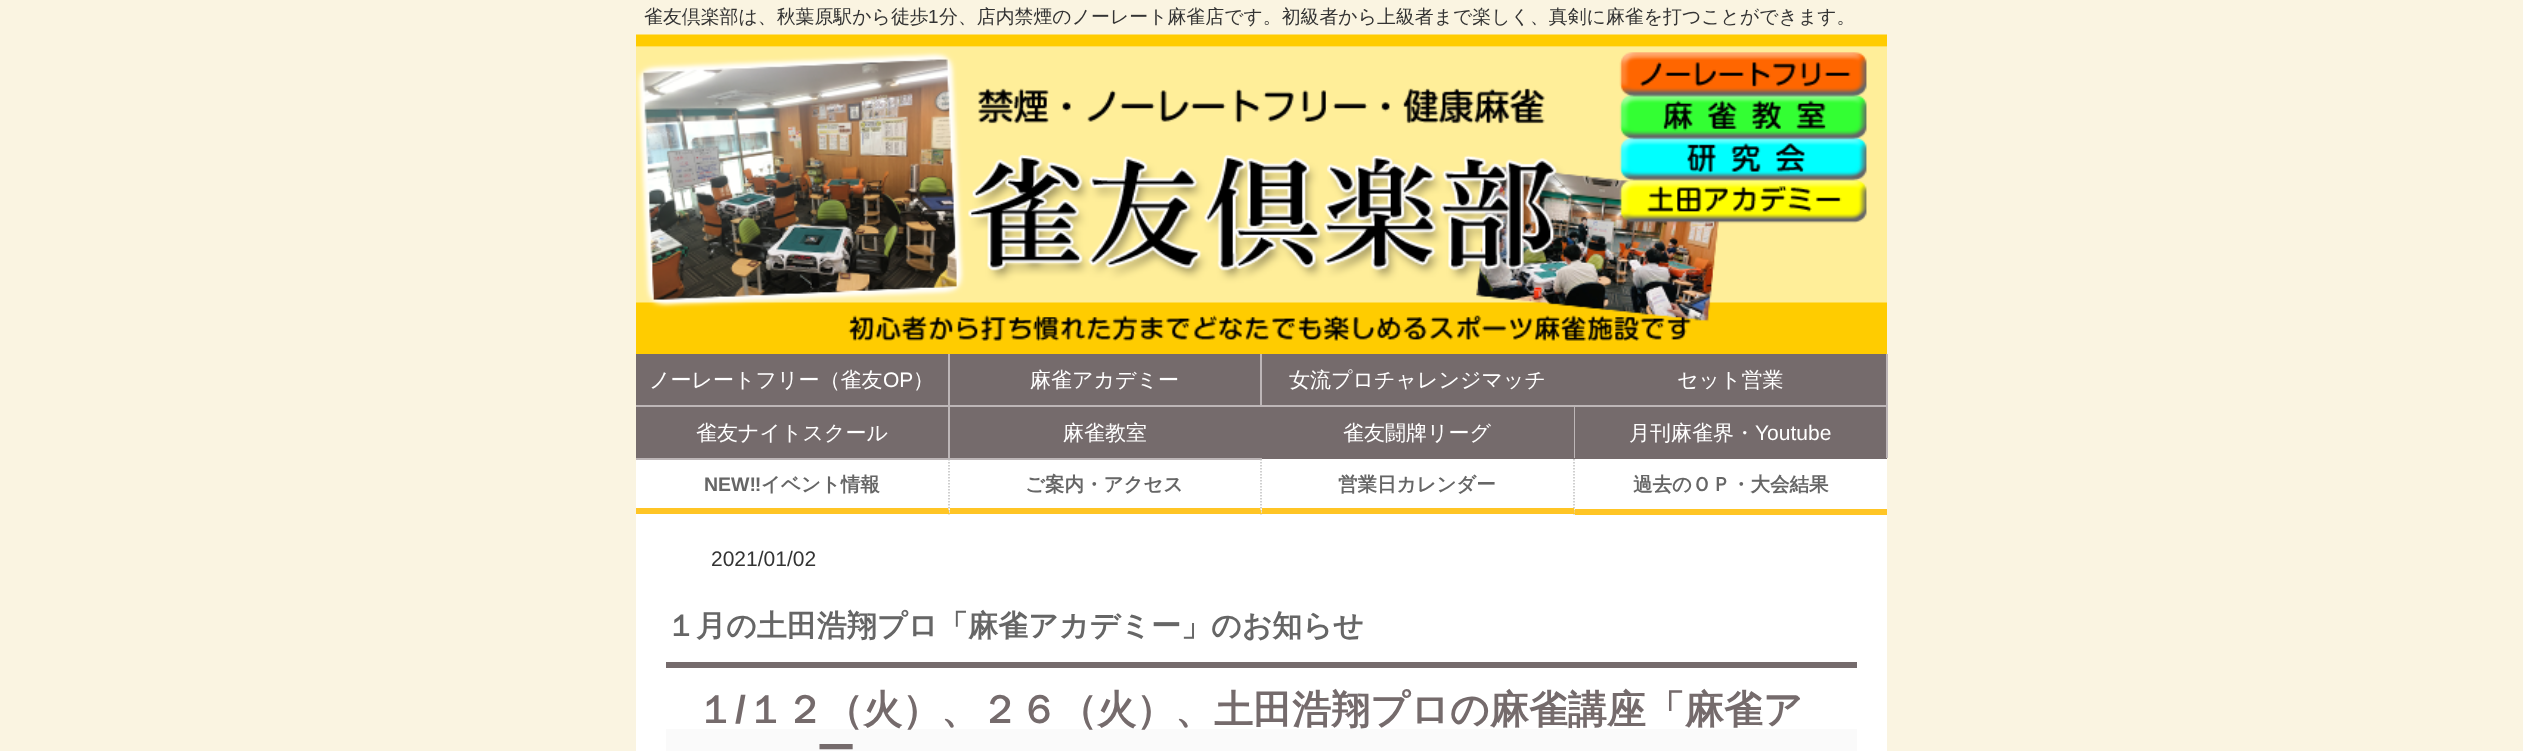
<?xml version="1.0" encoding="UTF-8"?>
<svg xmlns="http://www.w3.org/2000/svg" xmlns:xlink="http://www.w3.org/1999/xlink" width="2523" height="751">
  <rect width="100%" height="100%" fill="#faf4e1" />
  <rect x="636" y="459" width="1251" height="292" fill="#ffffff" />
  <image x="636" y="34" width="1251" height="320" xlink:href="image1.png" />
  <rect x="636" y="354" width="1251" height="105" fill="#756b6c" />
  <rect x="948" y="354" width="2" height="105" fill="#bdb6b7" />
  <rect x="636" y="405" width="314" height="2" fill="#bdb6b7" />
  <rect x="1260" y="354" width="2" height="53" fill="#bdb6b7" />
  <rect x="950" y="405" width="625" height="2" fill="#bdb6b7" />
  <rect x="1886" y="354" width="2" height="104" fill="#bdb6b7" />
  <rect x="1575" y="405" width="312" height="2" fill="#bdb6b7" />
  <rect x="636" y="458" width="626" height="2" fill="#bdb6b7" />
  <rect x="1574" y="407" width="1" height="51" fill="#bdb6b7" />
  <path d="M 949 459 v 55.5" fill="none" stroke="#c0c0c0" stroke-width="1.5" stroke-dasharray="1.5 1.5" />
  <path d="M 950 514 h -314 v -6 h 312 z" fill="#ffc525" />
  <path d="M 1261 459 v 55.5" fill="none" stroke="#c0c0c0" stroke-width="1.5" stroke-dasharray="1.5 1.5" />
  <path d="M 1262 514 h -312 v -6 h 310 z" fill="#ffc525" />
  <path d="M 1574 459 v 55.5" fill="none" stroke="#c0c0c0" stroke-width="1.5" stroke-dasharray="1.5 1.5" />
  <path d="M 1575 514 h -313 v -6 h 312 z" fill="#ffc525" />
  <rect x="1575" y="509" width="312" height="6" fill="#ffc525" />
  <rect x="666" y="729" width="1191" height="22" fill="#fafafa" />
  <rect x="666" y="662" width="1191" height="6" fill="#756b6c" />
  <text x="644" y="23" style="font-family: WenQuanYi Zen Hei; font-size: 18.9px; font-weight: 500; fill: #333333">雀友倶楽部は、秋葉原駅から徒歩</text>
  <text x="928" y="23" style="font-family: Liberation Sans; font-size: 18.9px; fill: #333333">1</text>
  <text x="939" y="23" style="font-family: WenQuanYi Zen Hei; font-size: 18.9px; font-weight: 500; fill: #333333">分、店内禁煙のノーレート麻雀店です。初級者から上級者まで楽しく、真剣に麻雀を打つことができます。</text>
  <text x="649" y="387" style="font-family: WenQuanYi Zen Hei; font-size: 21px; font-weight: 500; fill: #ffffff">ノーレートフリー（雀友</text>
  <text x="883" y="387" style="font-family: Liberation Sans; font-size: 21px; fill: #ffffff">OP</text>
  <text x="913" y="387" style="font-family: WenQuanYi Zen Hei; font-size: 21px; font-weight: 500; fill: #ffffff">）</text>
  <text x="1030" y="387" style="font-family: WenQuanYi Zen Hei; font-size: 21px; font-weight: 500; fill: #ffffff">麻雀アカデミー</text>
  <text x="1289" y="387" style="font-family: WenQuanYi Zen Hei; font-size: 21px; font-weight: 500; fill: #ffffff">女流プロチャレンジマッチ</text>
  <text x="1677" y="387" style="font-family: WenQuanYi Zen Hei; font-size: 21px; font-weight: 500; fill: #ffffff">セット営業</text>
  <text x="696" y="440" style="font-family: WenQuanYi Zen Hei; font-size: 21px; font-weight: 500; fill: #ffffff">雀友ナイトスクール</text>
  <text x="1063" y="440" style="font-family: WenQuanYi Zen Hei; font-size: 21px; font-weight: 500; fill: #ffffff">麻雀教室</text>
  <text x="1343" y="440" style="font-family: WenQuanYi Zen Hei; font-size: 21px; font-weight: 500; fill: #ffffff">雀友闘牌リーグ</text>
  <text x="1629" y="440" style="font-family: WenQuanYi Zen Hei; font-size: 21px; font-weight: 500; fill: #ffffff">月刊麻雀界・</text>
  <text x="1755" y="440" style="font-family: Liberation Sans; font-size: 21px; fill: #ffffff">Youtube</text>
  <text x="704" y="491" style="font-family: Liberation Sans; font-size: 19.5px; font-weight: bold; fill: #666666">NEW‼</text>
  <text x="761" y="491" style="font-family: WenQuanYi Zen Hei; font-size: 19.5px; font-weight: bold; fill: #666666">イベント情報</text>
  <text x="1025" y="491" style="font-family: WenQuanYi Zen Hei; font-size: 19.5px; font-weight: bold; fill: #666666">ご案内・アクセス</text>
  <text x="1338" y="491" style="font-family: WenQuanYi Zen Hei; font-size: 19.5px; font-weight: bold; fill: #666666">営業日カレンダー</text>
  <text x="1633" y="491" style="font-family: WenQuanYi Zen Hei; font-size: 19.5px; font-weight: bold; fill: #666666">過去のＯＰ・大会結果</text>
  <text x="711" y="566" style="font-family: Liberation Sans; font-size: 21px; fill: #333333">2021/01/02</text>
  <text x="666" y="636" style="font-family: WenQuanYi Zen Hei; font-size: 30px; font-weight: bold; fill: #666666">１月の土田浩翔プロ「麻雀アカデミー」のお知らせ</text>
  <text x="696" y="723" style="font-family: WenQuanYi Zen Hei; font-size: 39px; font-weight: bold; fill: #756b6c">１</text>
  <text x="735" y="723" style="font-family: Liberation Sans; font-size: 39px; font-weight: bold; fill: #756b6c">/</text>
  <text x="746" y="723" style="font-family: WenQuanYi Zen Hei; font-size: 39px; font-weight: bold; fill: #756b6c">１２（火）、２６（火）、土田浩翔プロの麻雀講座「麻雀ア</text>
  <text x="816" y="762" style="font-family: WenQuanYi Zen Hei; font-size: 39px; font-weight: bold; fill: #756b6c">ー</text>
</svg>
